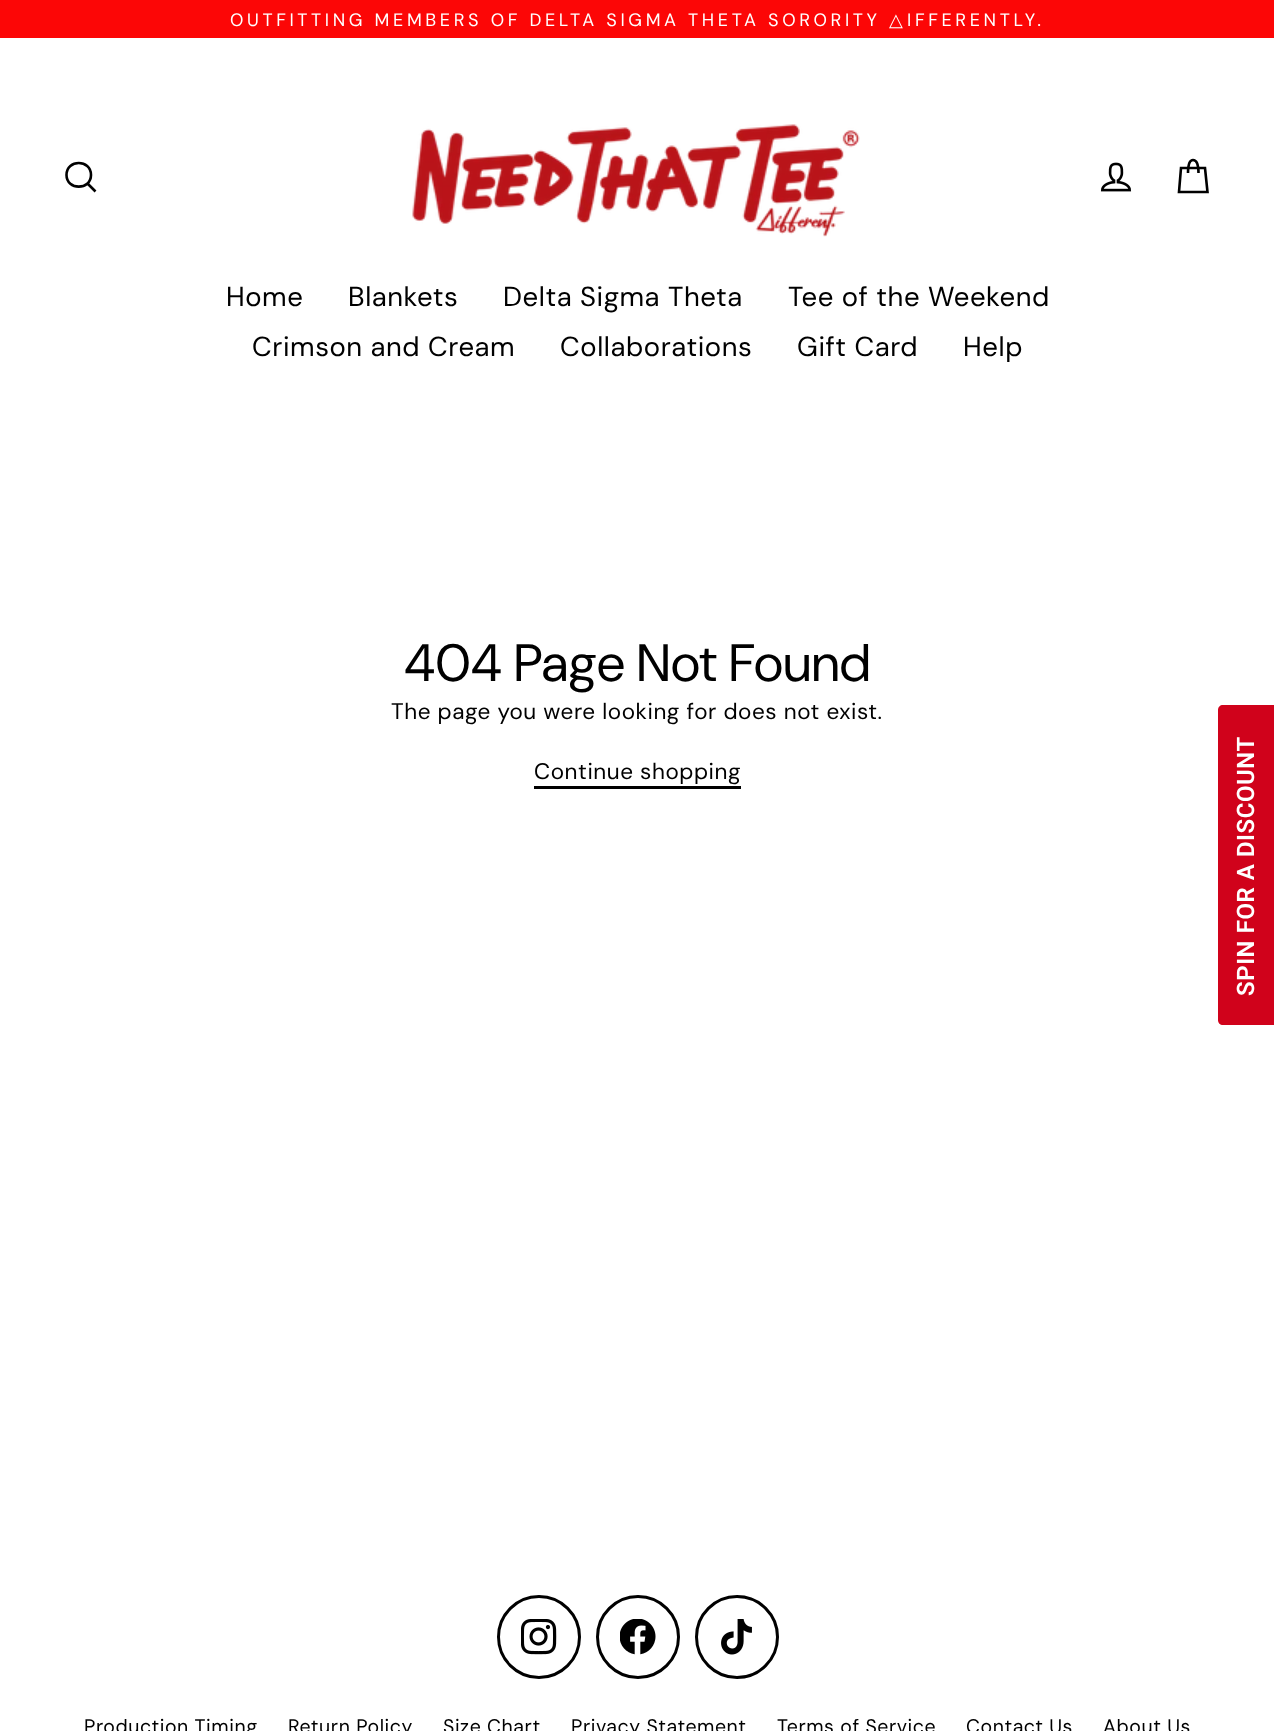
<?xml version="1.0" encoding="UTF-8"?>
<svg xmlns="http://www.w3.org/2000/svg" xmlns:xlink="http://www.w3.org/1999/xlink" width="1274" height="1731">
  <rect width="100%" height="100%" fill="#ffffff" />
  <rect width="1274" height="38" fill="#fc0606" />
  <path d="M 91 175 c 0 15.5 -24.5 15.5 -24.5 0 c 0 -16 24.5 -16 24.5 0 z m 4.5 16.5 l -8 -8" fill="none" stroke="#000000" stroke-width="2.6" />
  <image x="412" y="124" width="448" height="113" xlink:href="image1.png" />
  <image x="1100" y="162" width="32" height="30" xlink:href="image2.png" />
  <path d="M 1188 173 c 0 -10.5 2 -13 5 -13 c 3 0 5.5 2.5 5.5 13 m -17.5 -5 h 24 l 2.5 24 h -28.5 z" fill="none" stroke="#000000" stroke-width="2.6" />
  <rect x="534" y="786" width="207" height="3" fill="#000000" />
  <circle cx="539" cy="1637" r="40.5" fill="none" stroke="#000000" stroke-width="3" />
  <image x="521" y="1619" width="36" height="36" xlink:href="image3.png" />
  <circle cx="638" cy="1637" r="40.5" fill="none" stroke="#000000" stroke-width="3" />
  <image x="620" y="1619" width="36" height="36" xlink:href="image4.png" />
  <circle cx="737" cy="1637" r="40.5" fill="none" stroke="#000000" stroke-width="3" />
  <image x="721" y="1619" width="31" height="36" xlink:href="image5.png" />
  <path d="M 1223 705 h 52 v 320 h -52 c -3 0 -5 -2 -5 -5 v -310 c 0 -3 2 -5 5 -5 z" fill="#d0021b" />
  <text x="230" y="26" style="font-family: 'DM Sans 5'; font-size: 18px; letter-spacing: 3.6px; fill: #ffffff">OUTFITTING MEMBERS OF DELTA SIGMA THETA SORORITY</text>
  <text x="889" y="26" style="font-family: DejaVu Sans; font-size: 18px; letter-spacing: 3.6px; fill: #ffffff">△</text>
  <text x="907" y="26" style="font-family: 'DM Sans 5'; font-size: 18px; letter-spacing: 3.6px; fill: #ffffff">IFFERENTLY.</text>
  <text x="226" y="306" style="font-family: 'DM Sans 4'; font-size: 27.5px; letter-spacing: 0.55px; fill: #000000">Home</text>
  <text x="348" y="306" style="font-family: 'DM Sans 4'; font-size: 27.5px; letter-spacing: 0.55px; fill: #000000">Blankets</text>
  <text x="503" y="306" style="font-family: 'DM Sans 4'; font-size: 27.5px; letter-spacing: 0.55px; fill: #000000">Delta Sigma Theta</text>
  <text x="788" y="306" style="font-family: 'DM Sans 4'; font-size: 27.5px; letter-spacing: 0.55px; fill: #000000">Tee of the Weekend</text>
  <text x="252" y="356" style="font-family: 'DM Sans 4'; font-size: 27.5px; letter-spacing: 0.55px; fill: #000000">Crimson and Cream</text>
  <text x="560" y="356" style="font-family: 'DM Sans 4'; font-size: 27.5px; letter-spacing: 0.55px; fill: #000000">Collaborations</text>
  <text x="797" y="356" style="font-family: 'DM Sans 4'; font-size: 27.5px; letter-spacing: 0.55px; fill: #000000">Gift Card</text>
  <text x="963" y="356" style="font-family: 'DM Sans 4'; font-size: 27.5px; letter-spacing: 0.55px; fill: #000000">Help</text>
  <text x="404" y="681" style="font-family: DM Sans; font-size: 52.5px; fill: #000000">404 Page Not Found</text>
  <text x="391" y="719" style="font-family: 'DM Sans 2'; font-size: 22.5px; letter-spacing: 0.55px; fill: #000000">The page you were looking for does not exist.</text>
  <text x="534" y="779" style="font-family: 'DM Sans 2'; font-size: 22.5px; letter-spacing: 0.55px; fill: #000000">Continue shopping</text>
  <text x="84" y="1733" style="font-family: 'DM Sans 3'; font-size: 19.5px; letter-spacing: 0.55px; fill: #000000">Production Timing</text>
  <text x="288" y="1733" style="font-family: 'DM Sans 3'; font-size: 19.5px; letter-spacing: 0.55px; fill: #000000">Return Policy</text>
  <text x="443" y="1733" style="font-family: 'DM Sans 3'; font-size: 19.5px; letter-spacing: 0.55px; fill: #000000">Size Chart</text>
  <text x="571" y="1733" style="font-family: 'DM Sans 3'; font-size: 19.5px; letter-spacing: 0.55px; fill: #000000">Privacy Statement</text>
  <text x="777" y="1733" style="font-family: 'DM Sans 3'; font-size: 19.5px; letter-spacing: 0.55px; fill: #000000">Terms of Service</text>
  <text x="966" y="1733" style="font-family: 'DM Sans 3'; font-size: 19.5px; letter-spacing: 0.55px; fill: #000000">Contact Us</text>
  <text x="1103" y="1733" style="font-family: 'DM Sans 3'; font-size: 19.5px; letter-spacing: 0.55px; fill: #000000">About Us</text>
  <text x="1254" y="996" transform="rotate(-90 1254 996)" style="font-family: Roboto; font-size: 24px; font-weight: 600; letter-spacing: 0.55px; fill: #ffffff">SPIN FOR A DISCOUNT</text>
</svg>
